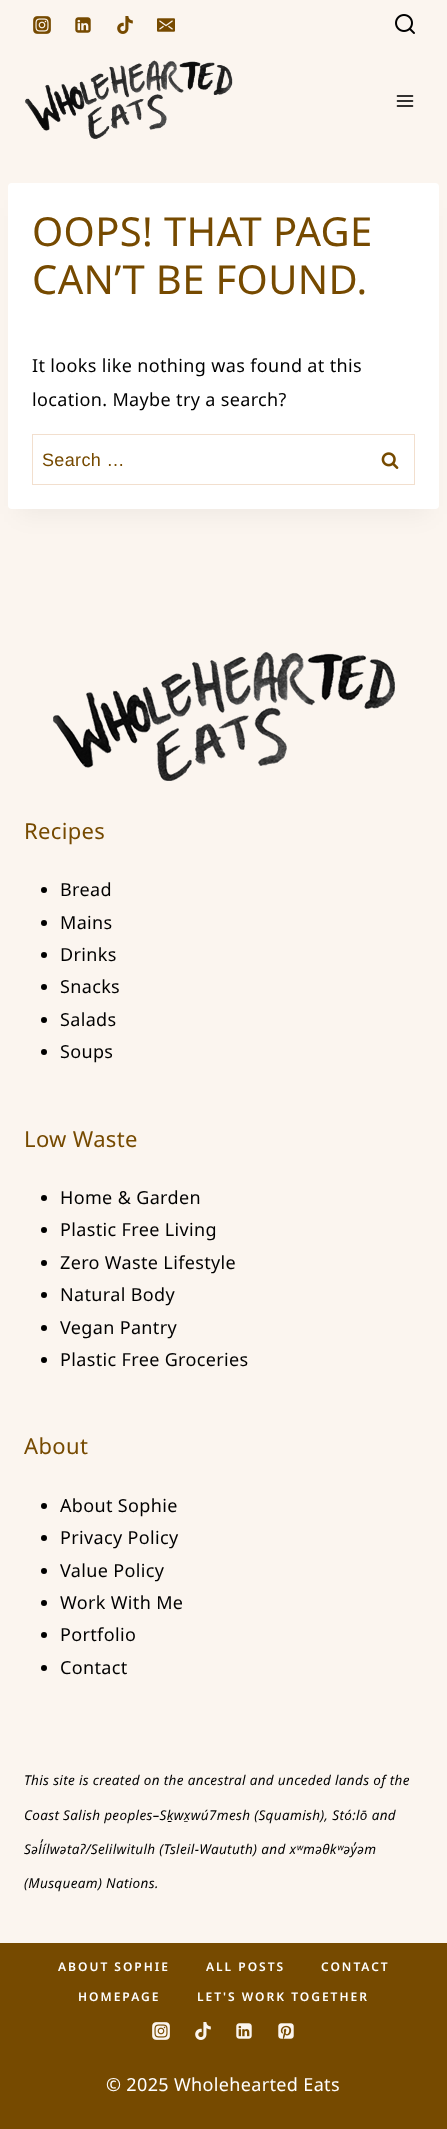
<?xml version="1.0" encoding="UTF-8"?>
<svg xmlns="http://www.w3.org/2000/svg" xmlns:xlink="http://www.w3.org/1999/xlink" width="447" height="2129">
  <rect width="100%" height="100%" fill="#fbf5ef" />
  <image x="33" y="16" width="18" height="18" xlink:href="image1.png" />
  <image x="75" y="17" width="16" height="16" xlink:href="image2.png" />
  <image x="117" y="16" width="16" height="18" xlink:href="image3.png" />
  <image x="157" y="18" width="18" height="14" xlink:href="image4.png" />
  <image x="395" y="14" width="20" height="20" xlink:href="image5.png" />
  <image x="25" y="60" width="208" height="79" xlink:href="image6.png" />
  <image x="396" y="95" width="18" height="12" xlink:href="image7.png" />
  <rect x="18" y="208" width="411" height="306" fill="#000000" fill-opacity="0.05" filter="blur(12.5px)" />
  <rect x="8" y="183" width="431" height="326" rx="4" fill="#ffffff" />
  <rect x="32.5" y="434.5" width="382" height="50" fill="none" stroke="#f2dfce" />
  <image x="381" y="452" width="18" height="17" xlink:href="image8.png" />
  <image x="53" y="652" width="342" height="129" xlink:href="image9.png" />
  <circle cx="44" cy="890" r="3" fill="#000000" />
  <circle cx="44" cy="923" r="3" fill="#000000" />
  <circle cx="44" cy="955" r="3" fill="#000000" />
  <circle cx="44" cy="987" r="3" fill="#000000" />
  <circle cx="44" cy="1020" r="3" fill="#000000" />
  <circle cx="44" cy="1052" r="3" fill="#000000" />
  <circle cx="44" cy="1198" r="3" fill="#000000" />
  <circle cx="44" cy="1230" r="3" fill="#000000" />
  <circle cx="44" cy="1263" r="3" fill="#000000" />
  <circle cx="44" cy="1295" r="3" fill="#000000" />
  <circle cx="44" cy="1328" r="3" fill="#000000" />
  <circle cx="44" cy="1360" r="3" fill="#000000" />
  <circle cx="44" cy="1506" r="3" fill="#000000" />
  <circle cx="44" cy="1538" r="3" fill="#000000" />
  <circle cx="44" cy="1571" r="3" fill="#000000" />
  <circle cx="44" cy="1603" r="3" fill="#000000" />
  <circle cx="44" cy="1635" r="3" fill="#000000" />
  <circle cx="44" cy="1668" r="3" fill="#000000" />
  <rect y="1943" width="447" height="186" fill="#764a00" />
  <image x="152" y="2022" width="18" height="18" xlink:href="image10.png" />
  <image x="195" y="2022" width="16" height="18" xlink:href="image11.png" />
  <image x="236" y="2023" width="16" height="16" xlink:href="image12.png" />
  <image x="278" y="2023" width="16" height="16" xlink:href="image13.png" />
  <text x="32" y="246" style="font-family: Noto Sans; font-size: 40px; letter-spacing: 0.35px; fill: #764a00">OOPS! THAT PAGE</text>
  <text x="32" y="294" style="font-family: Noto Sans; font-size: 40px; letter-spacing: 0.35px; fill: #764a00">CAN’T BE FOUND.</text>
  <text x="32" y="372" style="font-family: Noto Sans; font-size: 18px; letter-spacing: 0.35px; fill: #000000">It looks like nothing was found at this</text>
  <text x="32" y="406" style="font-family: Noto Sans; font-size: 18px; letter-spacing: 0.35px; fill: #000000">location. Maybe try a search?</text>
  <text x="42" y="466" style="font-family: Liberation Sans; font-size: 18px; letter-spacing: 0.35px; fill: #764a00">Search …</text>
  <text x="24" y="839" style="font-family: Noto Sans; font-size: 22px; letter-spacing: 0.35px; fill: #764a00">Recipes</text>
  <text x="60" y="896" style="font-family: Noto Sans; font-size: 18px; letter-spacing: 0.35px; fill: #000000">Bread</text>
  <text x="60" y="929" style="font-family: Noto Sans; font-size: 18px; letter-spacing: 0.35px; fill: #000000">Mains</text>
  <text x="60" y="961" style="font-family: Noto Sans; font-size: 18px; letter-spacing: 0.35px; fill: #000000">Drinks</text>
  <text x="60" y="993" style="font-family: Noto Sans; font-size: 18px; letter-spacing: 0.35px; fill: #000000">Snacks</text>
  <text x="60" y="1026" style="font-family: Noto Sans; font-size: 18px; letter-spacing: 0.35px; fill: #000000">Salads</text>
  <text x="60" y="1058" style="font-family: Noto Sans; font-size: 18px; letter-spacing: 0.35px; fill: #000000">Soups</text>
  <text x="24" y="1147" style="font-family: Noto Sans; font-size: 22px; letter-spacing: 0.35px; fill: #764a00">Low Waste</text>
  <text x="60" y="1204" style="font-family: Noto Sans; font-size: 18px; letter-spacing: 0.35px; fill: #000000">Home &amp; Garden</text>
  <text x="60" y="1236" style="font-family: Noto Sans; font-size: 18px; letter-spacing: 0.35px; fill: #000000">Plastic Free Living</text>
  <text x="60" y="1269" style="font-family: Noto Sans; font-size: 18px; letter-spacing: 0.35px; fill: #000000">Zero Waste Lifestyle</text>
  <text x="60" y="1301" style="font-family: Noto Sans; font-size: 18px; letter-spacing: 0.35px; fill: #000000">Natural Body</text>
  <text x="60" y="1334" style="font-family: Noto Sans; font-size: 18px; letter-spacing: 0.35px; fill: #000000">Vegan Pantry</text>
  <text x="60" y="1366" style="font-family: Noto Sans; font-size: 18px; letter-spacing: 0.35px; fill: #000000">Plastic Free Groceries</text>
  <text x="24" y="1454" style="font-family: Noto Sans; font-size: 22px; letter-spacing: 0.35px; fill: #764a00">About</text>
  <text x="60" y="1512" style="font-family: Noto Sans; font-size: 18px; letter-spacing: 0.35px; fill: #000000">About Sophie</text>
  <text x="60" y="1544" style="font-family: Noto Sans; font-size: 18px; letter-spacing: 0.35px; fill: #000000">Privacy Policy</text>
  <text x="60" y="1577" style="font-family: Noto Sans; font-size: 18px; letter-spacing: 0.35px; fill: #000000">Value Policy</text>
  <text x="60" y="1609" style="font-family: Noto Sans; font-size: 18px; letter-spacing: 0.35px; fill: #000000">Work With Me</text>
  <text x="60" y="1641" style="font-family: Noto Sans; font-size: 18px; letter-spacing: 0.35px; fill: #000000">Portfolio</text>
  <text x="60" y="1674" style="font-family: Noto Sans; font-size: 18px; letter-spacing: 0.35px; fill: #000000">Contact</text>
  <text x="24" y="1785" style="font-family: Noto Sans; font-size: 13.5px; font-style: italic; letter-spacing: 0.35px; fill: #000000">This site is created on the ancestral and unceded lands of the</text>
  <text x="24" y="1820" style="font-family: Noto Sans; font-size: 13.5px; font-style: italic; letter-spacing: 0.35px; fill: #000000">Coast Salish peoples–Sḵwx̱wú7mesh (Squamish), Stó:lō and</text>
  <text x="24" y="1854" style="font-family: Noto Sans; font-size: 13.5px; font-style: italic; letter-spacing: 0.35px; fill: #000000">Səl̓ílwətaʔ/Selilwitulh (Tsleil-Waututh) and xʷməθkʷəy̓əm</text>
  <text x="24" y="1888" style="font-family: Noto Sans; font-size: 13.5px; font-style: italic; letter-spacing: 0.35px; fill: #000000">(Musqueam) Nations.</text>
  <text x="58" y="1971" style="font-family: Noto Sans; font-size: 12px; font-weight: 600; letter-spacing: 2px; fill: #ffffff">ABOUT SOPHIE</text>
  <text x="206" y="1971" style="font-family: Noto Sans; font-size: 12px; font-weight: 600; letter-spacing: 2px; fill: #ffffff">ALL POSTS</text>
  <text x="321" y="1971" style="font-family: Noto Sans; font-size: 12px; font-weight: 600; letter-spacing: 2px; fill: #ffffff">CONTACT</text>
  <text x="78" y="2001" style="font-family: Noto Sans; font-size: 12px; font-weight: 600; letter-spacing: 2px; fill: #ffffff">HOMEPAGE</text>
  <text x="197" y="2001" style="font-family: Noto Sans; font-size: 12px; font-weight: 600; letter-spacing: 2px; fill: #ffffff">LET'S WORK TOGETHER</text>
  <text x="106" y="2091" style="font-family: Noto Sans; font-size: 18px; letter-spacing: 0.35px; fill: #ffffff">© 2025 Wholehearted Eats</text>
</svg>
